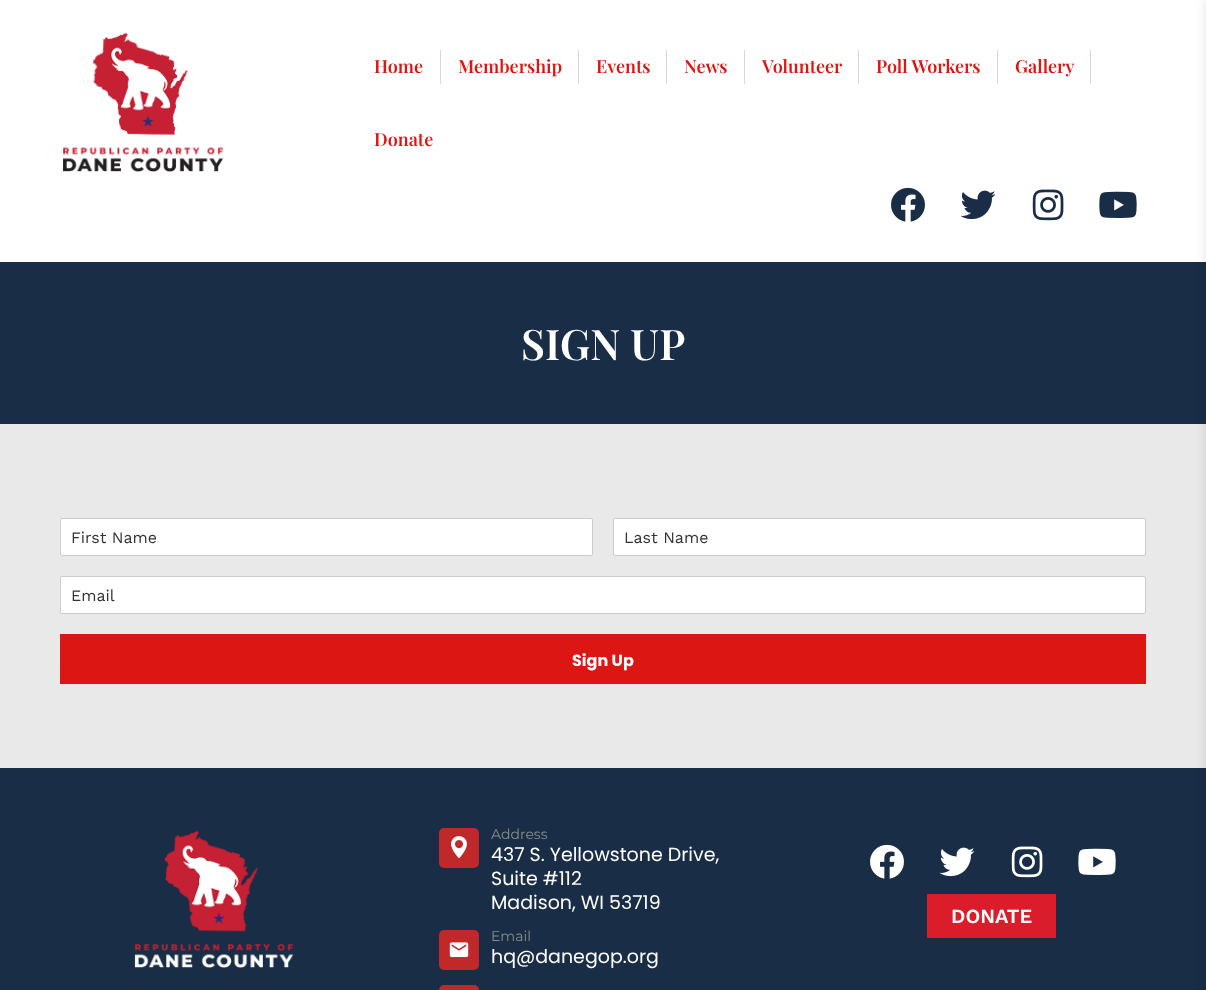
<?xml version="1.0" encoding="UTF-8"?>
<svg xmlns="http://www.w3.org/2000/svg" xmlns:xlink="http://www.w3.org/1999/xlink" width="1206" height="990">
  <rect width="100%" height="100%" fill="#ffffff" />
  <image x="63" y="32" width="161" height="140" xlink:href="image1.png" />
  <rect x="440" y="50" width="1" height="34" fill="#d8d8d8" />
  <rect x="578" y="50" width="1" height="34" fill="#d8d8d8" />
  <rect x="666" y="50" width="1" height="34" fill="#d8d8d8" />
  <rect x="744" y="50" width="1" height="34" fill="#d8d8d8" />
  <rect x="858" y="50" width="1" height="34" fill="#d8d8d8" />
  <rect x="997" y="50" width="1" height="34" fill="#d8d8d8" />
  <rect x="1090" y="50" width="1" height="34" fill="#d8d8d8" />
  <image x="891" y="187" width="34" height="35" xlink:href="image2.png" />
  <image x="960" y="190" width="36" height="30" xlink:href="image3.png" />
  <image x="1032" y="189" width="32" height="32" xlink:href="image4.png" />
  <image x="1099" y="191" width="38" height="27" xlink:href="image5.png" />
  <rect y="262" width="1206" height="162" fill="#192d47" />
  <rect y="424" width="1206" height="344" fill="#e9e9e9" />
  <rect x="60.5" y="518.5" width="532" height="37" rx="1.5" fill="#ffffff" stroke="#cccccc" />
  <rect x="613.5" y="518.5" width="532" height="37" rx="1.5" fill="#ffffff" stroke="#cccccc" />
  <rect x="60.5" y="576.5" width="1085" height="37" rx="1.5" fill="#ffffff" stroke="#cccccc" />
  <rect x="60" y="634" width="1086" height="50" fill="#db1613" />
  <rect y="768" width="1206" height="222" fill="#192d47" />
  <image x="134" y="830" width="160" height="138" xlink:href="image6.png" />
  <rect x="439" y="828" width="40" height="40" rx="5" fill="#c1282a" />
  <image x="451" y="836" width="16" height="22" xlink:href="image7.png" />
  <rect x="439" y="930" width="40" height="40" rx="5" fill="#c1282a" />
  <image x="449" y="942" width="20" height="16" xlink:href="image8.png" />
  <rect x="439" y="985" width="40" height="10" rx="5" fill="#c1282a" />
  <image x="870" y="844" width="34" height="35" xlink:href="image9.png" />
  <image x="939" y="847" width="36" height="30" xlink:href="image10.png" />
  <image x="1011" y="846" width="32" height="32" xlink:href="image11.png" />
  <image x="1078" y="848" width="38" height="27" xlink:href="image12.png" />
  <rect x="927" y="894" width="129" height="44" fill="#db1d2b" />
  <rect x="1205" y="1" width="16" height="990" fill="#000000" fill-opacity="0.1" filter="blur(5px)" />
  <text x="374" y="73" style="font-family: Playfair Display; font-size: 18px; font-weight: 600; fill: #db1613">Home</text>
  <text x="458" y="73" style="font-family: Playfair Display; font-size: 18px; font-weight: 600; fill: #db1613">Membership</text>
  <text x="596" y="73" style="font-family: Playfair Display; font-size: 18px; font-weight: 600; fill: #db1613">Events</text>
  <text x="684" y="73" style="font-family: Playfair Display; font-size: 18px; font-weight: 600; fill: #db1613">News</text>
  <text x="762" y="73" style="font-family: Playfair Display; font-size: 18px; font-weight: 600; fill: #db1613">Volunteer</text>
  <text x="876" y="73" style="font-family: Playfair Display; font-size: 18px; font-weight: 600; fill: #db1613">Poll Workers</text>
  <text x="1015" y="73" style="font-family: Playfair Display; font-size: 18px; font-weight: 600; fill: #db1613">Gallery</text>
  <text x="374" y="146" style="font-family: Playfair Display; font-size: 18px; font-weight: 600; fill: #db1613">Donate</text>
  <text x="521" y="360" style="font-family: Playfair Display; font-size: 42px; font-weight: 600; fill: #ffffff">SIGN UP</text>
  <text x="71" y="543" style="font-family: Work Sans; font-size: 16px; fill: #333333">First Name</text>
  <text x="624" y="543" style="font-family: Work Sans; font-size: 16px; fill: #333333">Last Name</text>
  <text x="71" y="601" style="font-family: Work Sans; font-size: 16px; fill: #333333">Email</text>
  <text x="572" y="666" style="font-family: Poppins; font-size: 16px; font-weight: bold; fill: #ffffff">Sign Up</text>
  <text x="491" y="839" style="font-family: Montserrat; font-size: 14px; fill: #8d8d8d">Address</text>
  <text x="491" y="861" style="font-family: Poppins; font-size: 19px; fill: #ffffff">437 S. Yellowstone Drive,</text>
  <text x="491" y="885" style="font-family: Poppins; font-size: 19px; fill: #ffffff">Suite #112</text>
  <text x="491" y="909" style="font-family: Poppins; font-size: 19px; fill: #ffffff">Madison, WI 53719</text>
  <text x="491" y="941" style="font-family: Montserrat; font-size: 14px; fill: #8d8d8d">Email</text>
  <text x="491" y="963" style="font-family: Poppins; font-size: 19px; fill: #ffffff">hq@danegop.org</text>
  <text x="951" y="923" style="font-family: Work Sans; font-size: 20px; font-weight: 600; fill: #ffffff">DONATE</text>
</svg>
